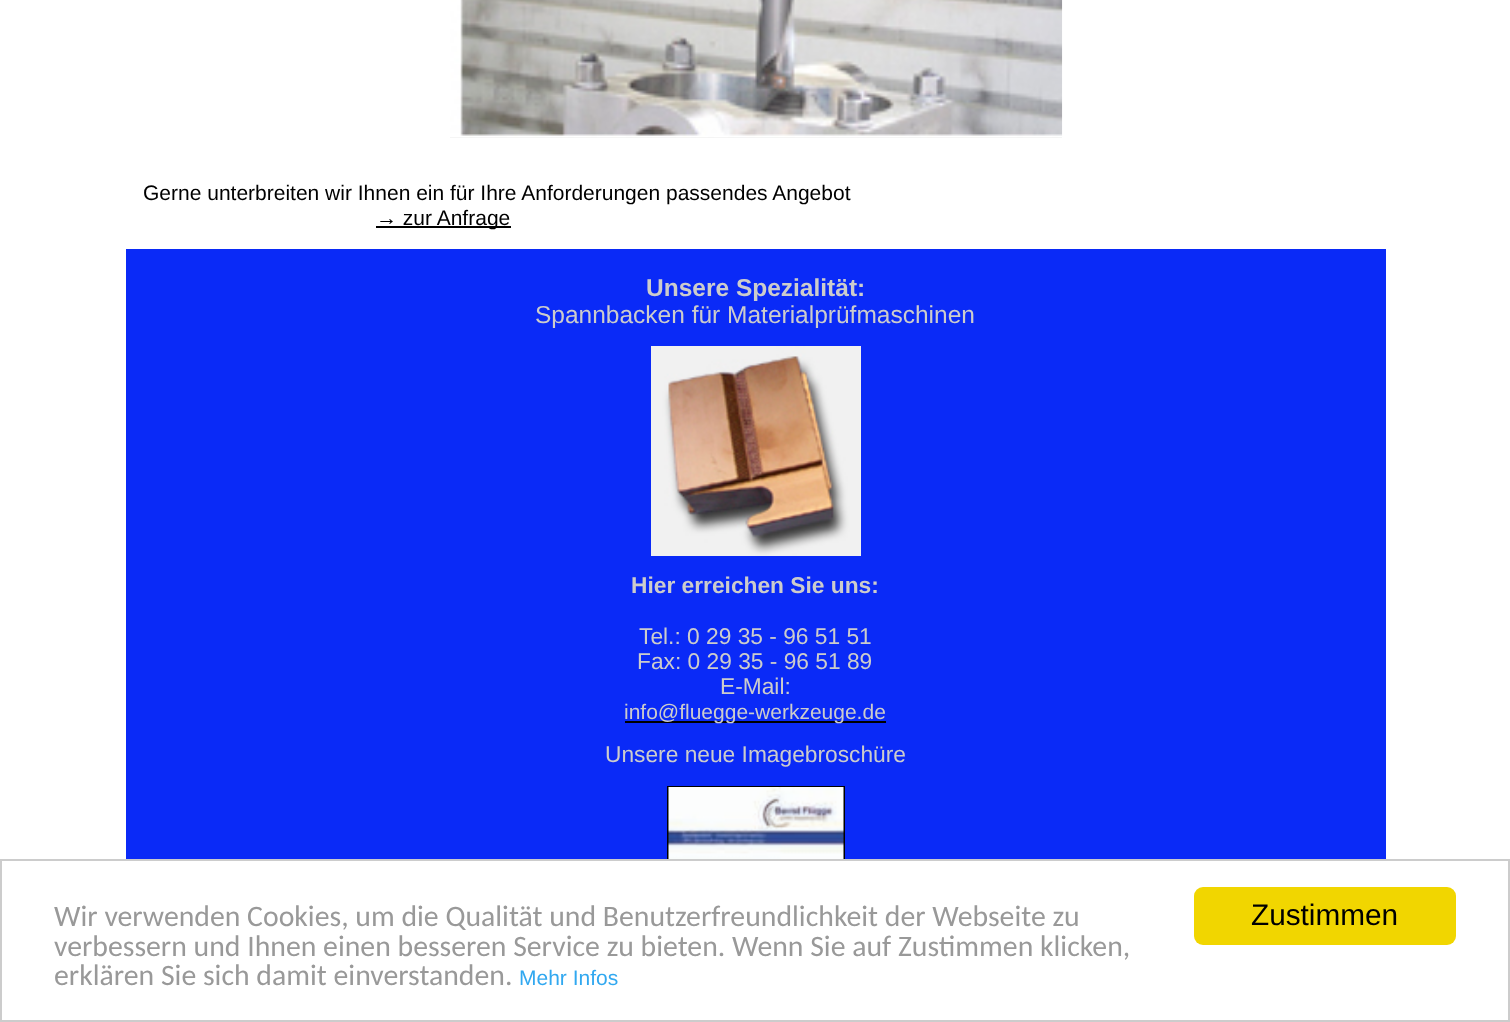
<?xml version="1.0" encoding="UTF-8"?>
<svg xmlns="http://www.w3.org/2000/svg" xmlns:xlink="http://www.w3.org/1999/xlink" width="1510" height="1022">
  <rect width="100%" height="100%" fill="#ffffff" />
  <rect x="450" y="137" width="612" height="1" fill="#e9e9e9" />
  <image x="450" y="0" width="613" height="138" xlink:href="image1.png" />
  <rect x="376" y="226" width="135" height="2" fill="#000000" />
  <rect x="126" y="249" width="1260" height="610" fill="#0a2af7" />
  <image x="651" y="346" width="210" height="210" xlink:href="image2.png" />
  <rect x="625" y="721" width="261" height="2" fill="#000000" />
  <rect x="668" y="787" width="176" height="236" fill="none" stroke="#000000" stroke-width="2" />
  <image x="668" y="787" width="176" height="72" xlink:href="image3.png" />
  <rect x="667" y="861" width="178" height="159" fill="#ffffff" />
  <rect x="1" y="860" width="1508" height="161" fill="none" stroke="#cccccc" stroke-width="2" />
  <rect x="1194" y="887" width="262" height="58" rx="9" fill="#f1d600" />
  <text x="143" y="200" style="font-family: Liberation Sans; font-size: 21px; fill: #000000">Gerne unterbreiten wir Ihnen ein für Ihre Anforderungen passendes Angebot</text>
  <text x="376" y="225" style="font-family: Liberation Sans; font-size: 21px; fill: #000000">→ zur Anfrage</text>
  <text x="646" y="296" style="font-family: Liberation Sans; font-size: 24.5px; font-weight: bold; fill: #cccccc">Unsere Spezialität:</text>
  <text x="535" y="323" style="font-family: Liberation Sans; font-size: 24.5px; fill: #cccccc">Spannbacken für Materialprüfmaschinen</text>
  <text x="631" y="593" style="font-family: Liberation Sans; font-size: 22.75px; font-weight: bold; fill: #cccccc">Hier erreichen Sie uns:</text>
  <text x="639" y="644" style="font-family: Liberation Sans; font-size: 22.75px; fill: #cccccc">Tel.: 0 29 35 - 96 51 51</text>
  <text x="637" y="669" style="font-family: Liberation Sans; font-size: 22.75px; fill: #cccccc">Fax: 0 29 35 - 96 51 89</text>
  <text x="720" y="694" style="font-family: Liberation Sans; font-size: 22.75px; fill: #cccccc">E-Mail:</text>
  <text x="624" y="719" style="font-family: Liberation Sans; font-size: 21px; fill: #cccccc">info@fluegge-werkzeuge.de</text>
  <text x="605" y="762" style="font-family: Liberation Sans; font-size: 22.75px; fill: #cccccc">Unsere neue Imagebroschüre</text>
  <text x="54" y="926" style="font-family: Carlito; font-size: 29.75px; fill: #999999">Wir verwenden Cookies, um die Qualität und Benutzerfreundlichkeit der Webseite zu</text>
  <text x="54" y="956" style="font-family: Carlito; font-size: 29.75px; fill: #999999">verbessern und Ihnen einen besseren Service zu bieten. Wenn Sie auf Zustimmen klicken,</text>
  <text x="54" y="985" style="font-family: Carlito; font-size: 29.75px; fill: #999999">erklären Sie sich damit einverstanden.</text>
  <text x="519" y="985" style="font-family: Liberation Sans; font-size: 21px; fill: #31a8f0">Mehr Infos</text>
  <text x="1251" y="925" style="font-family: Liberation Sans; font-size: 29.75px; fill: #000000">Zustimmen</text>
</svg>
